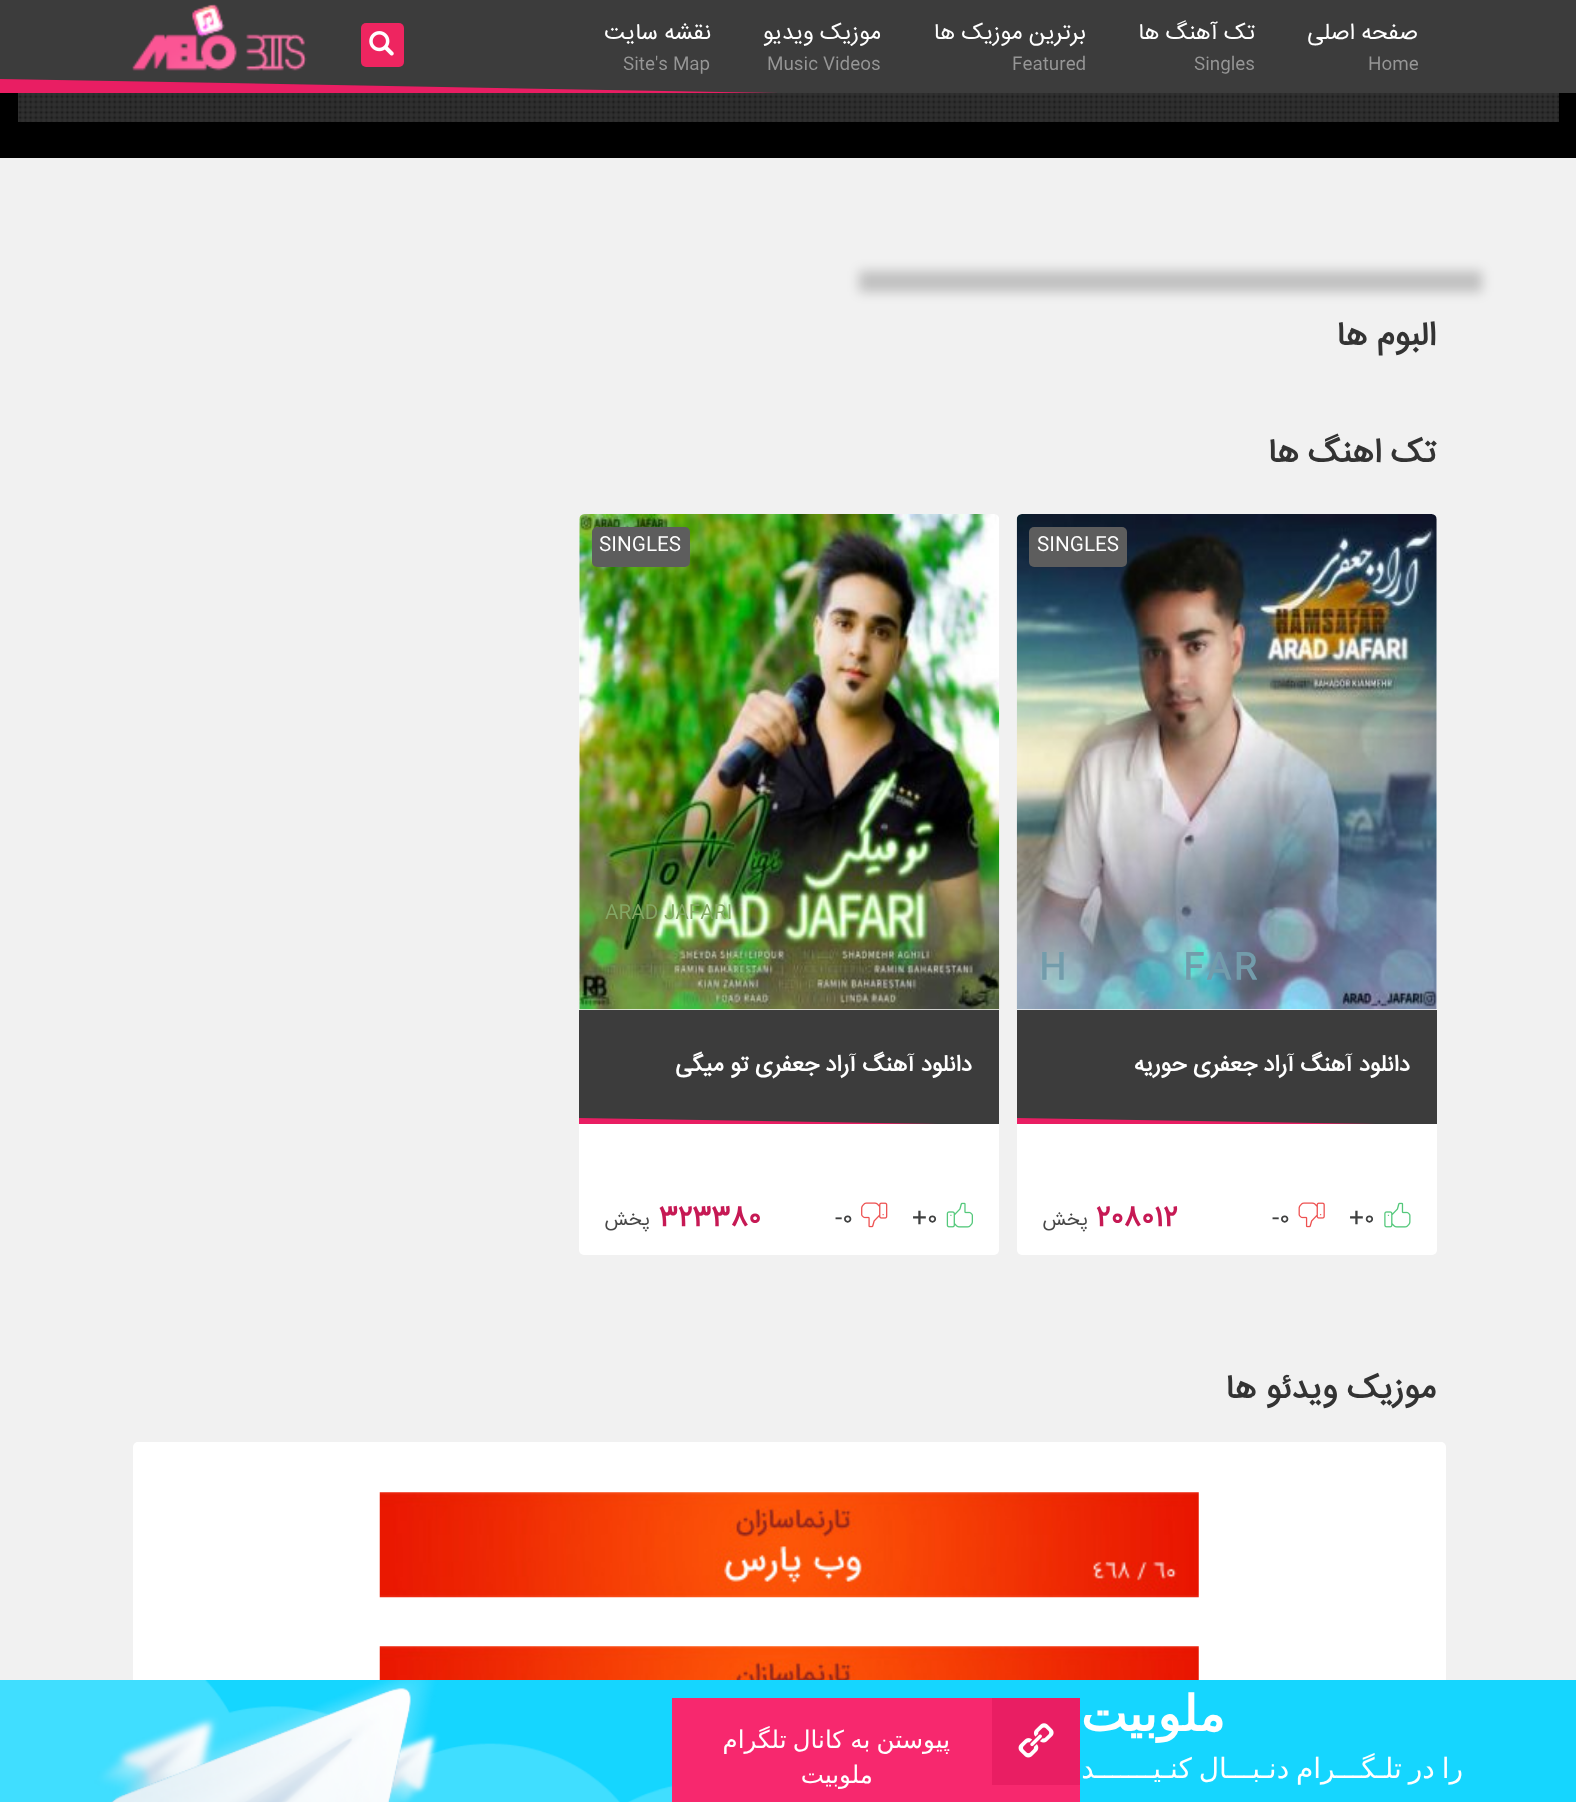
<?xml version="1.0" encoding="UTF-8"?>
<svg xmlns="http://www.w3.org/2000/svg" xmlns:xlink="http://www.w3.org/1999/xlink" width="1576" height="1802">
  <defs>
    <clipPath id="clip1"><rect width="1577" height="158" /></clipPath>
    <clipPath id="clip2"><rect x="1017" y="1010" width="420" height="114" /></clipPath>
    <clipPath id="clip3"><rect x="579" y="1010" width="420" height="114" /></clipPath>
  </defs>
  <rect width="100%" height="100%" fill="#f1f1f1" />
  <rect x="18" y="93" width="1541" height="29" fill="#303030" />
  <g clip-path="url(#clip1)">
    <path d="M -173 -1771 h 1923 v 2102 h -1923 z m 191 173 h 1541 v 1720 h -1541 z" fill="#000000" fill-rule="evenodd" />
  </g>
  <rect width="1576" height="93" fill="#3c3c3c" />
  <rect x="361" y="23" width="43" height="44" rx="5" fill="#ee2560" />
  <image x="369" y="31" width="25" height="25" xlink:href="image1.png" />
  <image x="132" y="4" width="175" height="67" xlink:href="image2.png" />
  <path d="M 779 93 h -779 v -14 z" fill="#e91e63" />
  <image x="18" y="93" width="1541" height="29" xlink:href="image3.png" />
  <rect x="859" y="271" width="623" height="21" fill="#000000" fill-opacity="0.2" filter="blur(6px)" />
  <rect x="1017" y="515" width="420" height="740" rx="5" fill="#ffffff" />
  <image x="1016" y="514" width="421" height="496" xlink:href="image4.png" />
  <rect x="1029" y="527" width="98" height="40" rx="5" fill="#5d5d5d" />
  <rect x="1017" y="1010" width="420" height="114" fill="#3c3c3c" />
  <g clip-path="url(#clip2)">
    <path d="M 1017 1128 v -10 l 419 7 v 11 z" fill="#e91e63" />
  </g>
  <image x="1384" y="1202" width="27" height="26" xlink:href="image5.png" />
  <image x="1298" y="1202" width="27" height="26" xlink:href="image6.png" />
  <rect x="579" y="515" width="420" height="740" rx="5" fill="#ffffff" />
  <image x="579" y="514" width="421" height="496" xlink:href="image7.png" />
  <rect x="592" y="527" width="98" height="40" rx="5" fill="#5d5d5d" />
  <rect x="579" y="1010" width="420" height="114" fill="#3c3c3c" />
  <g clip-path="url(#clip3)">
    <path d="M 579 1128 v -10 l 419 7 v 11 z" fill="#e91e63" />
  </g>
  <image x="946" y="1202" width="27" height="26" xlink:href="image8.png" />
  <image x="861" y="1202" width="27" height="26" xlink:href="image9.png" />
  <rect x="133" y="1442" width="1313" height="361" rx="5" fill="#ffffff" />
  <image x="379" y="1492" width="820" height="106" xlink:href="image10.png" />
  <image x="379" y="1646" width="820" height="34" xlink:href="image11.png" />
  <rect x="205" y="1680" width="1371" height="122" fill="#15d6ff" />
  <image x="0" y="1680" width="672" height="122" xlink:href="image12.png" />
  <rect x="672" y="1698" width="408" height="104" fill="#f7286e" />
  <rect x="992" y="1698" width="88" height="87" fill="#e91e63" />
  <image x="1018" y="1723" width="36" height="35" xlink:href="image13.png" />
  <text x="1418" y="39" style="font-family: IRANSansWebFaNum; font-size: 22.75px; direction: rtl; fill: #ffffff">صفحه اصلی</text>
  <text x="1368" y="69" style="font-family: IRANSansWebFaNum; font-size: 17.5px; fill: #969696">Home</text>
  <text x="1255" y="39" style="font-family: IRANSansWebFaNum; font-size: 22.75px; direction: rtl; fill: #ffffff">تک آهنگ ها</text>
  <text x="1194" y="69" style="font-family: IRANSansWebFaNum; font-size: 17.5px; fill: #969696">Singles</text>
  <text x="1086" y="39" style="font-family: IRANSansWebFaNum; font-size: 22.75px; direction: rtl; fill: #ffffff">برترین موزیک ها</text>
  <text x="1012" y="69" style="font-family: IRANSansWebFaNum; font-size: 17.5px; fill: #969696">Featured</text>
  <text x="881" y="39" style="font-family: IRANSansWebFaNum; font-size: 22.75px; direction: rtl; fill: #ffffff">موزیک ویدیو</text>
  <text x="767" y="69" style="font-family: IRANSansWebFaNum; font-size: 17.5px; fill: #969696">Music Videos</text>
  <text x="711" y="39" style="font-family: IRANSansWebFaNum; font-size: 22.75px; direction: rtl; fill: #ffffff">نقشه سایت</text>
  <text x="623" y="69" style="font-family: IRANSansWebFaNum; font-size: 17.5px; fill: #969696">Site's Map</text>
  <text x="1436" y="345" style="font-family: IRANSansWebFaNum; font-size: 33.25px; font-weight: bold; direction: rtl; fill: #333333">البوم ها</text>
  <text x="1436" y="462" style="font-family: IRANSansWebFaNum; font-size: 33.25px; font-weight: bold; direction: rtl; fill: #333333">تک اهنگ ها</text>
  <text x="1037" y="550" style="font-family: IRANSansWebFaNum; font-size: 19.25px; fill: #ffffff">SINGLES</text>
  <text x="1183" y="978" style="font-family: IRANSansWebFaNum; font-size: 35px; font-weight: bold; letter-spacing: 2.5px; fill: #739cab">FAR</text>
  <text x="1039" y="978" style="font-family: IRANSansWebFaNum; font-size: 35px; font-weight: bold; letter-spacing: 2.5px; fill: #739cab">H</text>
  <text x="1410" y="1071" style="font-family: IRANSansWebFaNum; font-size: 22.75px; font-weight: bold; direction: rtl; fill: #ffffff">دانلود آهنگ آراد جعفری حوریه</text>
  <text x="1349" y="1225" style="font-family: IRANSansWebFaNum; font-size: 24.5px; fill: #3f4040">+۰</text>
  <text x="1272" y="1225" style="font-family: IRANSansWebFaNum; font-size: 24.5px; fill: #3f4040">-۰</text>
  <text x="1096" y="1226" style="font-family: IRANSansWebFaNum; font-size: 30px; font-weight: bold; fill: #c61954">۲۰۸۰۱۲</text>
  <text x="1088" y="1225" style="font-family: IRANSansWebFaNum; font-size: 19.25px; direction: rtl; fill: #474747">پخش</text>
  <text x="599" y="550" style="font-family: IRANSansWebFaNum; font-size: 19.25px; fill: #ffffff">SINGLES</text>
  <text x="605" y="918" style="font-family: IRANSansWebFaNum; font-size: 19.25px; fill: #84a764">ARAD JAFARI</text>
  <text x="972" y="1071" style="font-family: IRANSansWebFaNum; font-size: 22.75px; font-weight: bold; direction: rtl; fill: #ffffff">دانلود آهنگ آراد جعفری تو میگی</text>
  <text x="912" y="1225" style="font-family: IRANSansWebFaNum; font-size: 24.5px; fill: #3f4040">+۰</text>
  <text x="835" y="1225" style="font-family: IRANSansWebFaNum; font-size: 24.5px; fill: #3f4040">-۰</text>
  <text x="659" y="1226" style="font-family: IRANSansWebFaNum; font-size: 30px; font-weight: bold; fill: #c61954">۳۲۳۳۸۰</text>
  <text x="650" y="1225" style="font-family: IRANSansWebFaNum; font-size: 19.25px; direction: rtl; fill: #474747">پخش</text>
  <text x="1436" y="1398" style="font-family: IRANSansWebFaNum; font-size: 33.25px; font-weight: bold; direction: rtl; fill: #333333">موزیک ویدئو ها</text>
  <text x="1225" y="1731" style="font-family: DejaVu Sans; font-size: 49px; font-weight: bold; direction: rtl; fill: #ffffff">ملوبیت</text>
  <text x="1463" y="1778" word-spacing="-2" style="font-family: DejaVu Sans; font-size: 28px; direction: rtl; fill: #ffffff">را در تلـگـــرام دنـبـــال کنـیـــــــد</text>
  <text x="950" y="1748" word-spacing="-1.5" style="font-family: DejaVu Sans; font-size: 24.5px; direction: rtl; fill: #ffffff">پیوستن به کانال تلگرام</text>
  <text x="873" y="1783" style="font-family: DejaVu Sans; font-size: 24.5px; direction: rtl; fill: #ffffff">ملوبیت</text>
</svg>
